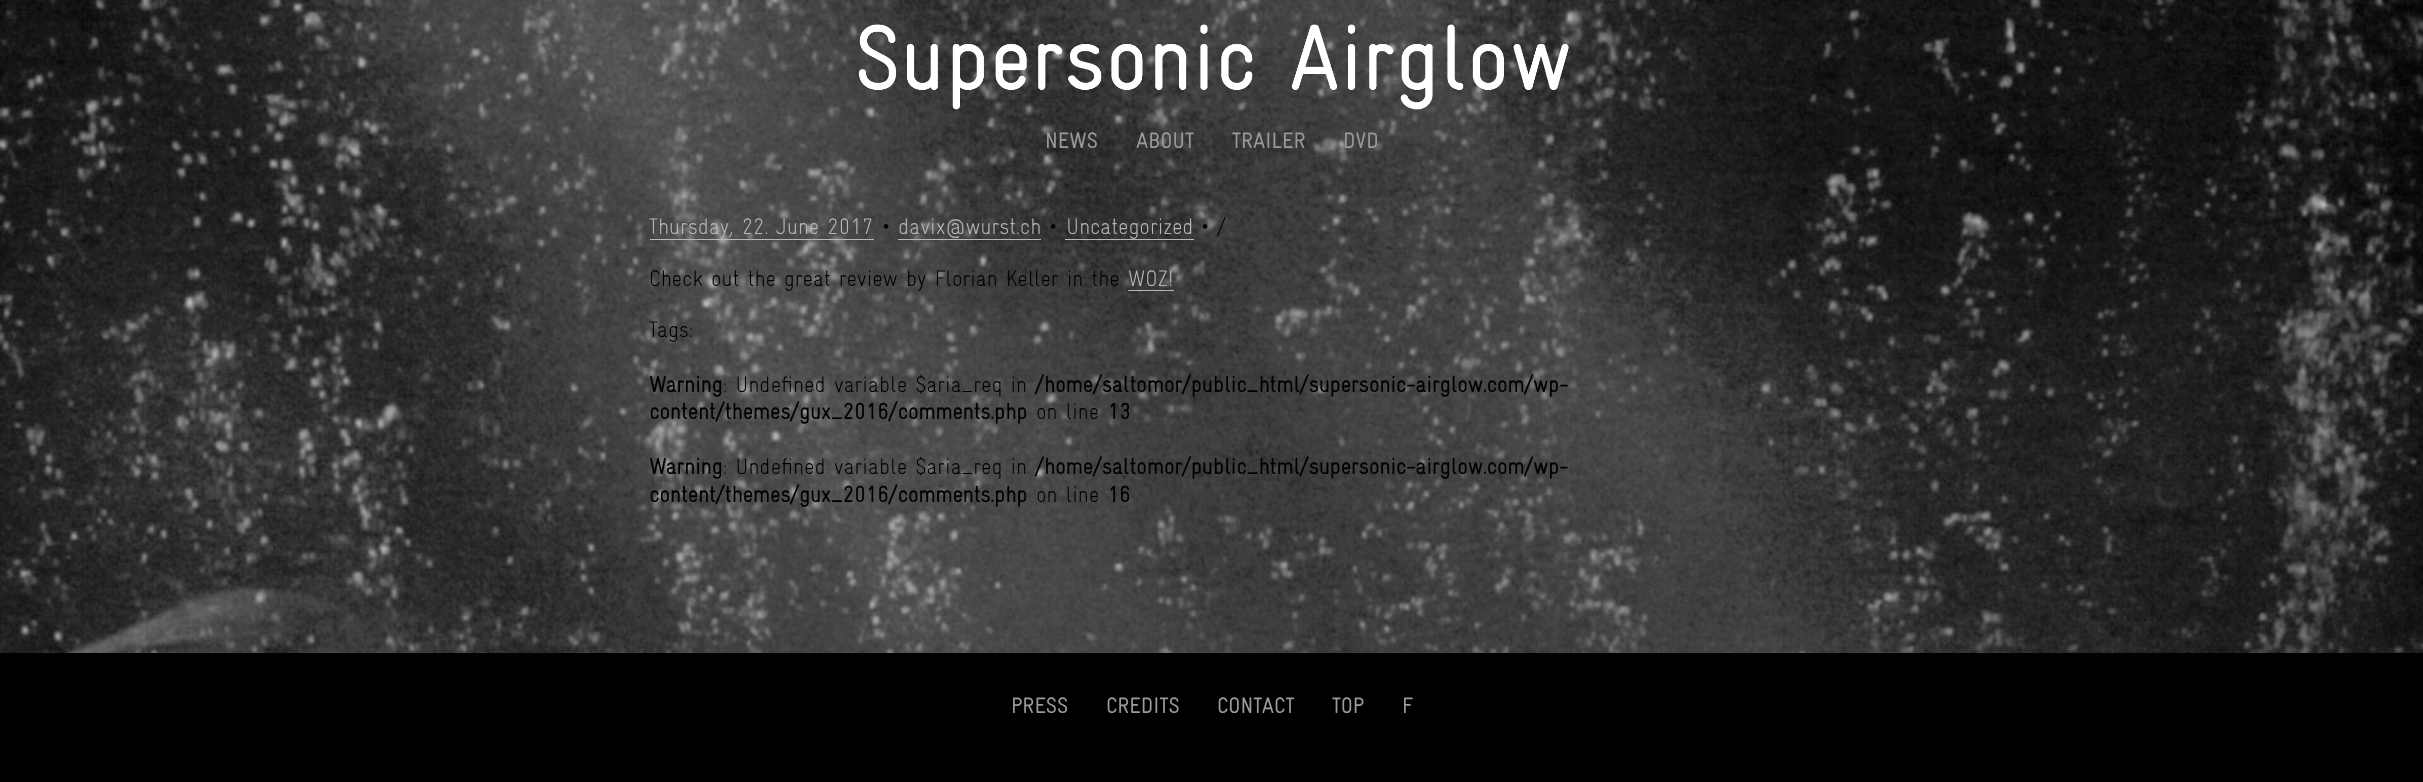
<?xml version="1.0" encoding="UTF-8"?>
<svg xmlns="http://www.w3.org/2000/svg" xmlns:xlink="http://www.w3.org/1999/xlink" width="2423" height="782">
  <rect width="100%" height="100%" fill="#ffffff" />
  <image x="0" y="0" width="2423" height="653" xlink:href="image1.png" />
  <image x="858" y="24" width="711" height="86" xlink:href="image2.png" />
  <rect x="650" y="239" width="224" height="1" fill="#b7b7b7" />
  <rect x="898" y="239" width="143" height="1" fill="#b7b7b7" />
  <rect x="1065" y="239" width="129" height="1" fill="#b7b7b7" />
  <rect x="1128" y="290" width="46" height="1" fill="#b7b7b7" />
  <rect y="653" width="2423" height="129" fill="#000000" />
  <text x="1045" y="148" style="font-family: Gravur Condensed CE; font-size: 22.5px; fill: #9a9a9a">NEWS</text>
  <text x="1136" y="148" style="font-family: Gravur Condensed CE; font-size: 22.5px; fill: #9a9a9a">ABOUT</text>
  <text x="1232" y="148" style="font-family: Gravur Condensed CE; font-size: 22.5px; fill: #9a9a9a">TRAILER</text>
  <text x="1343" y="148" style="font-family: Gravur Condensed CE; font-size: 22.5px; fill: #9a9a9a">DVD</text>
  <text x="649" y="234" style="font-family: Gravur Condensed CE; font-size: 22.5px; font-weight: 300; fill: #b7b7b7">Thursday, 22. June 2017</text>
  <text x="882" y="234" style="font-family: Gravur Condensed CE; font-size: 22.5px; font-weight: 300; fill: #000000">•</text>
  <text x="898" y="234" style="font-family: Gravur Condensed CE; font-size: 22.5px; font-weight: 300; fill: #b7b7b7">davix@wurst.ch</text>
  <text x="1049" y="234" style="font-family: Gravur Condensed CE; font-size: 22.5px; font-weight: 300; fill: #000000">•</text>
  <text x="1066" y="234" style="font-family: Gravur Condensed CE; font-size: 22.5px; font-weight: 300; fill: #b7b7b7">Uncategorized</text>
  <text x="1201" y="234" style="font-family: Gravur Condensed CE; font-size: 22.5px; font-weight: 300; fill: #000000">• /</text>
  <text x="649" y="286" style="font-family: Gravur Condensed CE; font-size: 22.5px; font-weight: 300; fill: #000000">Check out the great review by Florian Keller in the</text>
  <text x="1128" y="286" style="font-family: Gravur Condensed CE; font-size: 22.5px; font-weight: 300; fill: #b7b7b7">WOZ!</text>
  <text x="649" y="337" style="font-family: Gravur Condensed CE; font-size: 22.5px; font-weight: 300; fill: #000000">Tags:</text>
  <text x="649" y="392" style="font-family: Gravur Condensed CE; font-size: 22.5px; font-weight: bold; fill: #000000">Warning</text>
  <text x="723" y="392" style="font-family: Gravur Condensed CE; font-size: 22.5px; font-weight: 300; fill: #000000">: Undefined variable $aria_req in</text>
  <text x="1035" y="392" style="font-family: Gravur Condensed CE; font-size: 22.5px; font-weight: bold; fill: #000000">/home/saltomor/public_html/supersonic-airglow.com/wp-</text>
  <text x="649" y="419" style="font-family: Gravur Condensed CE; font-size: 22.5px; font-weight: bold; fill: #000000">content/themes/gux_2016/comments.php</text>
  <text x="1036" y="419" style="font-family: Gravur Condensed CE; font-size: 22.5px; font-weight: 300; fill: #000000">on line</text>
  <text x="1107" y="419" style="font-family: Gravur Condensed CE; font-size: 22.5px; font-weight: bold; fill: #000000">13</text>
  <text x="649" y="474" style="font-family: Gravur Condensed CE; font-size: 22.5px; font-weight: bold; fill: #000000">Warning</text>
  <text x="723" y="474" style="font-family: Gravur Condensed CE; font-size: 22.5px; font-weight: 300; fill: #000000">: Undefined variable $aria_req in</text>
  <text x="1035" y="474" style="font-family: Gravur Condensed CE; font-size: 22.5px; font-weight: bold; fill: #000000">/home/saltomor/public_html/supersonic-airglow.com/wp-</text>
  <text x="649" y="502" style="font-family: Gravur Condensed CE; font-size: 22.5px; font-weight: bold; fill: #000000">content/themes/gux_2016/comments.php</text>
  <text x="1036" y="502" style="font-family: Gravur Condensed CE; font-size: 22.5px; font-weight: 300; fill: #000000">on line</text>
  <text x="1107" y="502" style="font-family: Gravur Condensed CE; font-size: 22.5px; font-weight: bold; fill: #000000">16</text>
  <text x="1011" y="713" style="font-family: Gravur Condensed CE; font-size: 22.5px; fill: #9a9a9a">PRESS</text>
  <text x="1106" y="713" style="font-family: Gravur Condensed CE; font-size: 22.5px; fill: #9a9a9a">CREDITS</text>
  <text x="1217" y="713" style="font-family: Gravur Condensed CE; font-size: 22.5px; fill: #9a9a9a">CONTACT</text>
  <text x="1332" y="713" style="font-family: Gravur Condensed CE; font-size: 22.5px; fill: #9a9a9a">TOP</text>
  <text x="1402" y="713" style="font-family: Gravur Condensed CE; font-size: 22.5px; fill: #9a9a9a">F</text>
</svg>
